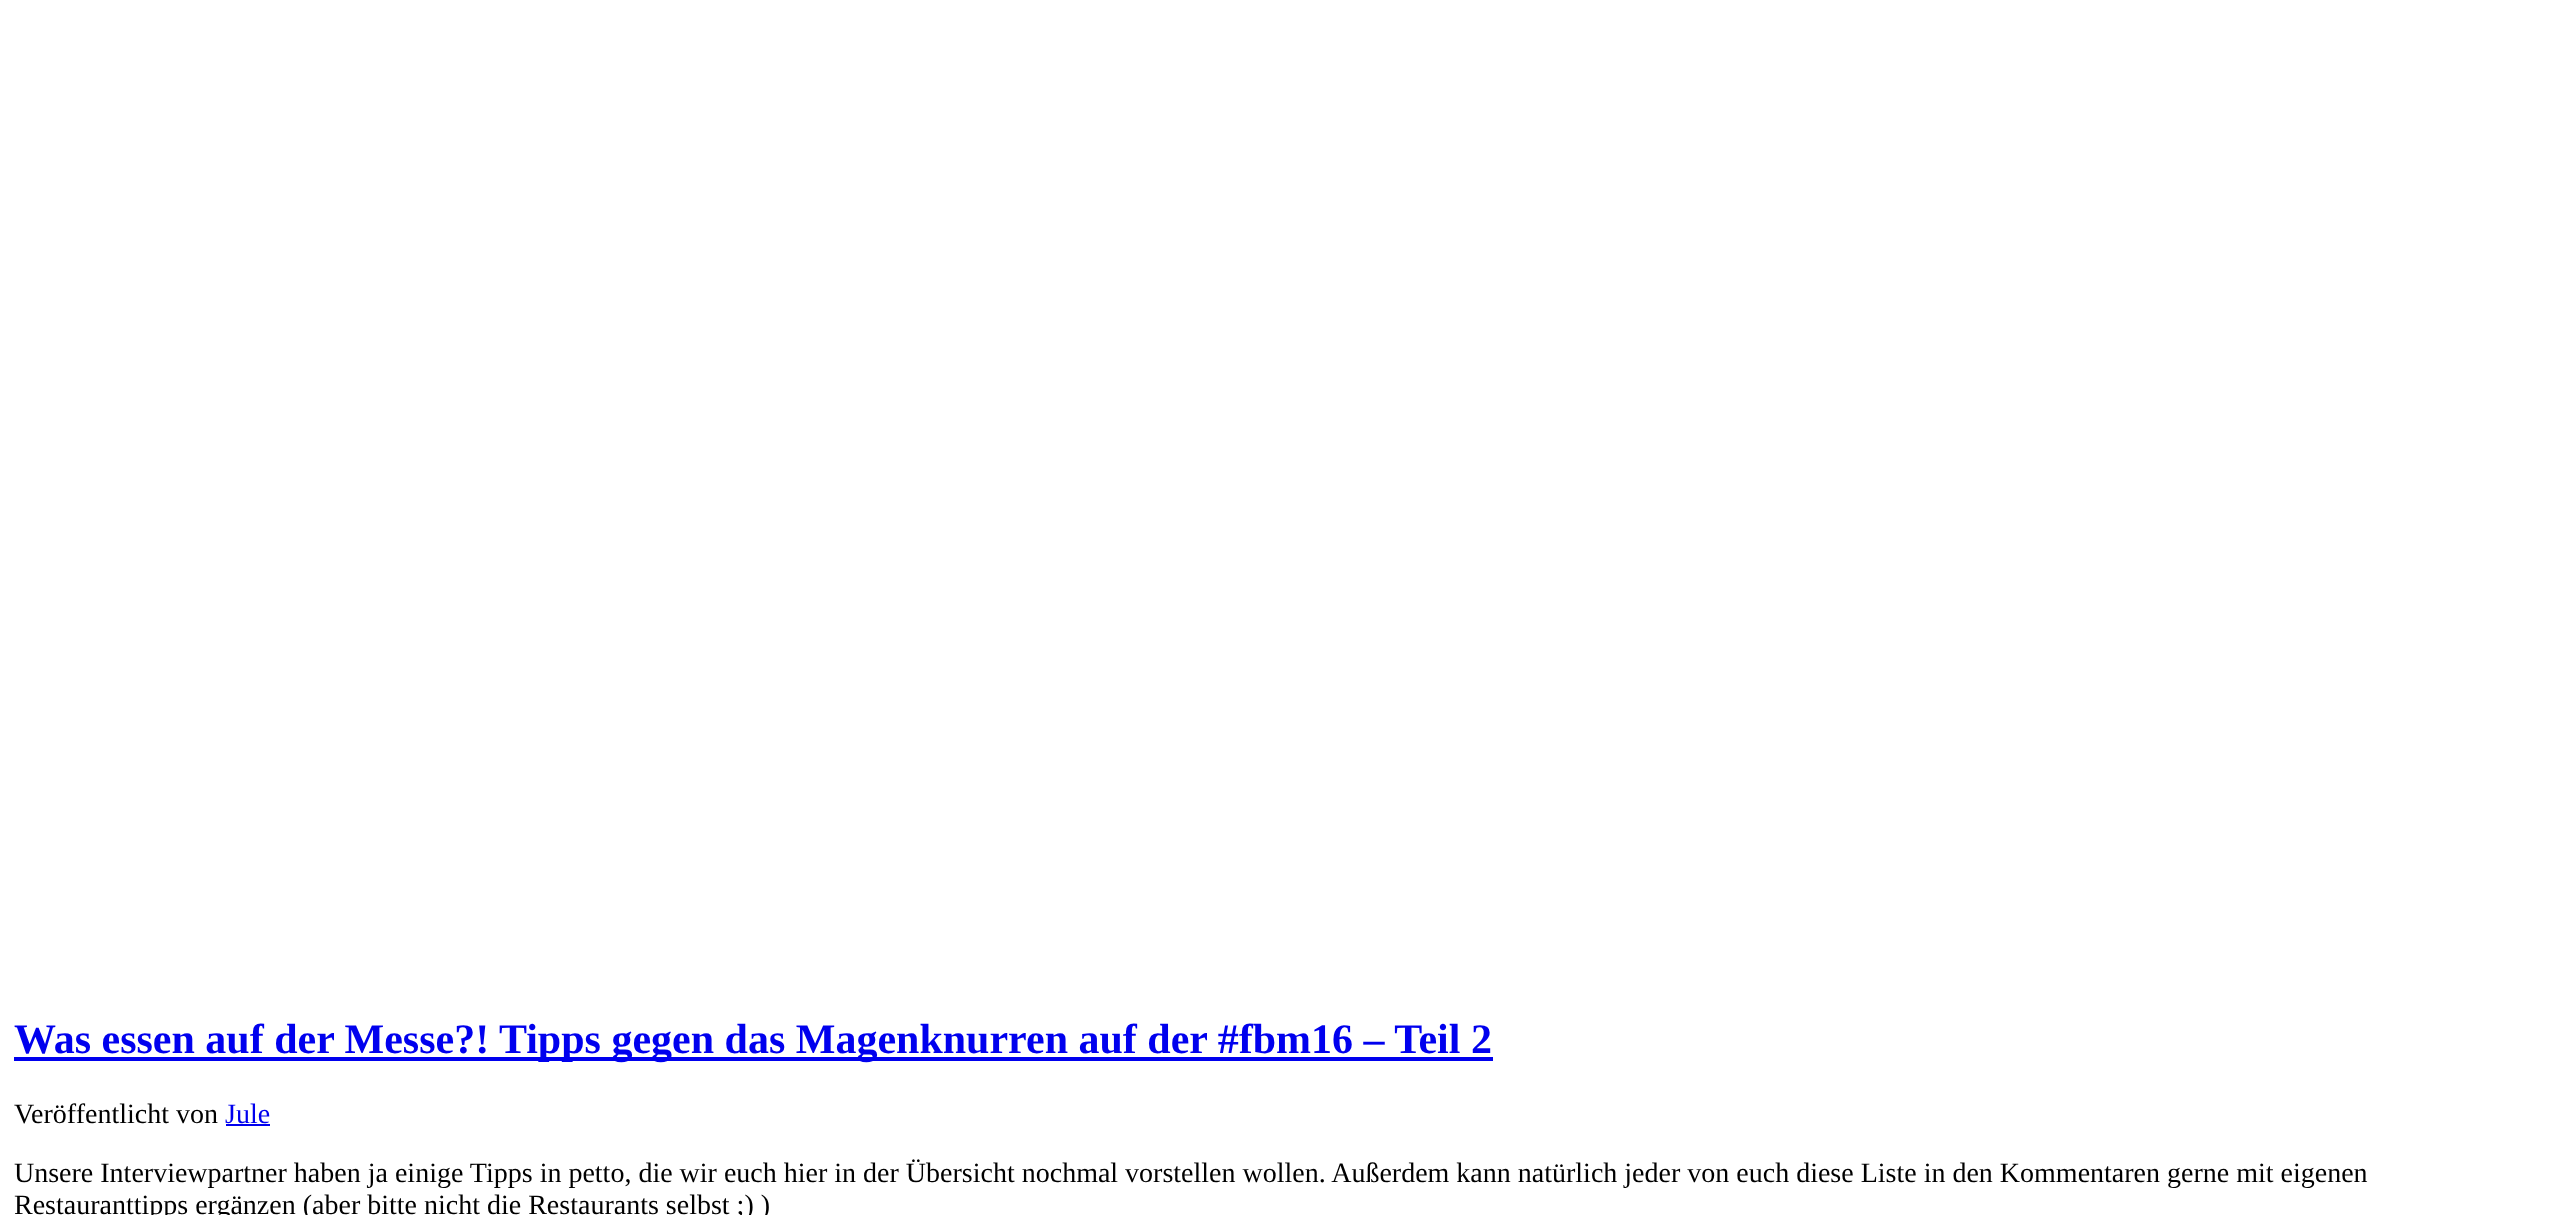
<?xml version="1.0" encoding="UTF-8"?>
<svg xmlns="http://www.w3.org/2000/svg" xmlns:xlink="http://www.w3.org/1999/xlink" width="2559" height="1215">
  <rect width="100%" height="100%" fill="#ffffff" />
  <rect x="14" y="1057" width="1479" height="4" fill="#0000ee" />
  <rect x="226" y="1124" width="44" height="2" fill="#0000ee" />
  <text x="14" y="1053" style="font-family: Liberation Serif; font-size: 42px; font-weight: bold; fill: #0000ee">Was essen auf der Messe?! Tipps gegen das Magenknurren auf der #fbm16 – Teil 2</text>
  <text x="14" y="1123" style="font-family: Liberation Serif; font-size: 28px; fill: #000000">Veröffentlicht von</text>
  <text x="225" y="1123" style="font-family: Liberation Serif; font-size: 28px; fill: #0000ee">Jule</text>
  <text x="14" y="1182" style="font-family: Liberation Serif; font-size: 28px; fill: #000000">Unsere Interviewpartner haben ja einige Tipps in petto, die wir euch hier in der Übersicht nochmal vorstellen wollen. Außerdem kann natürlich jeder von euch diese Liste in den Kommentaren gerne mit eigenen</text>
  <text x="14" y="1214" style="font-family: Liberation Serif; font-size: 28px; fill: #000000">Restauranttipps ergänzen (aber bitte nicht die Restaurants selbst ;) )</text>
</svg>
